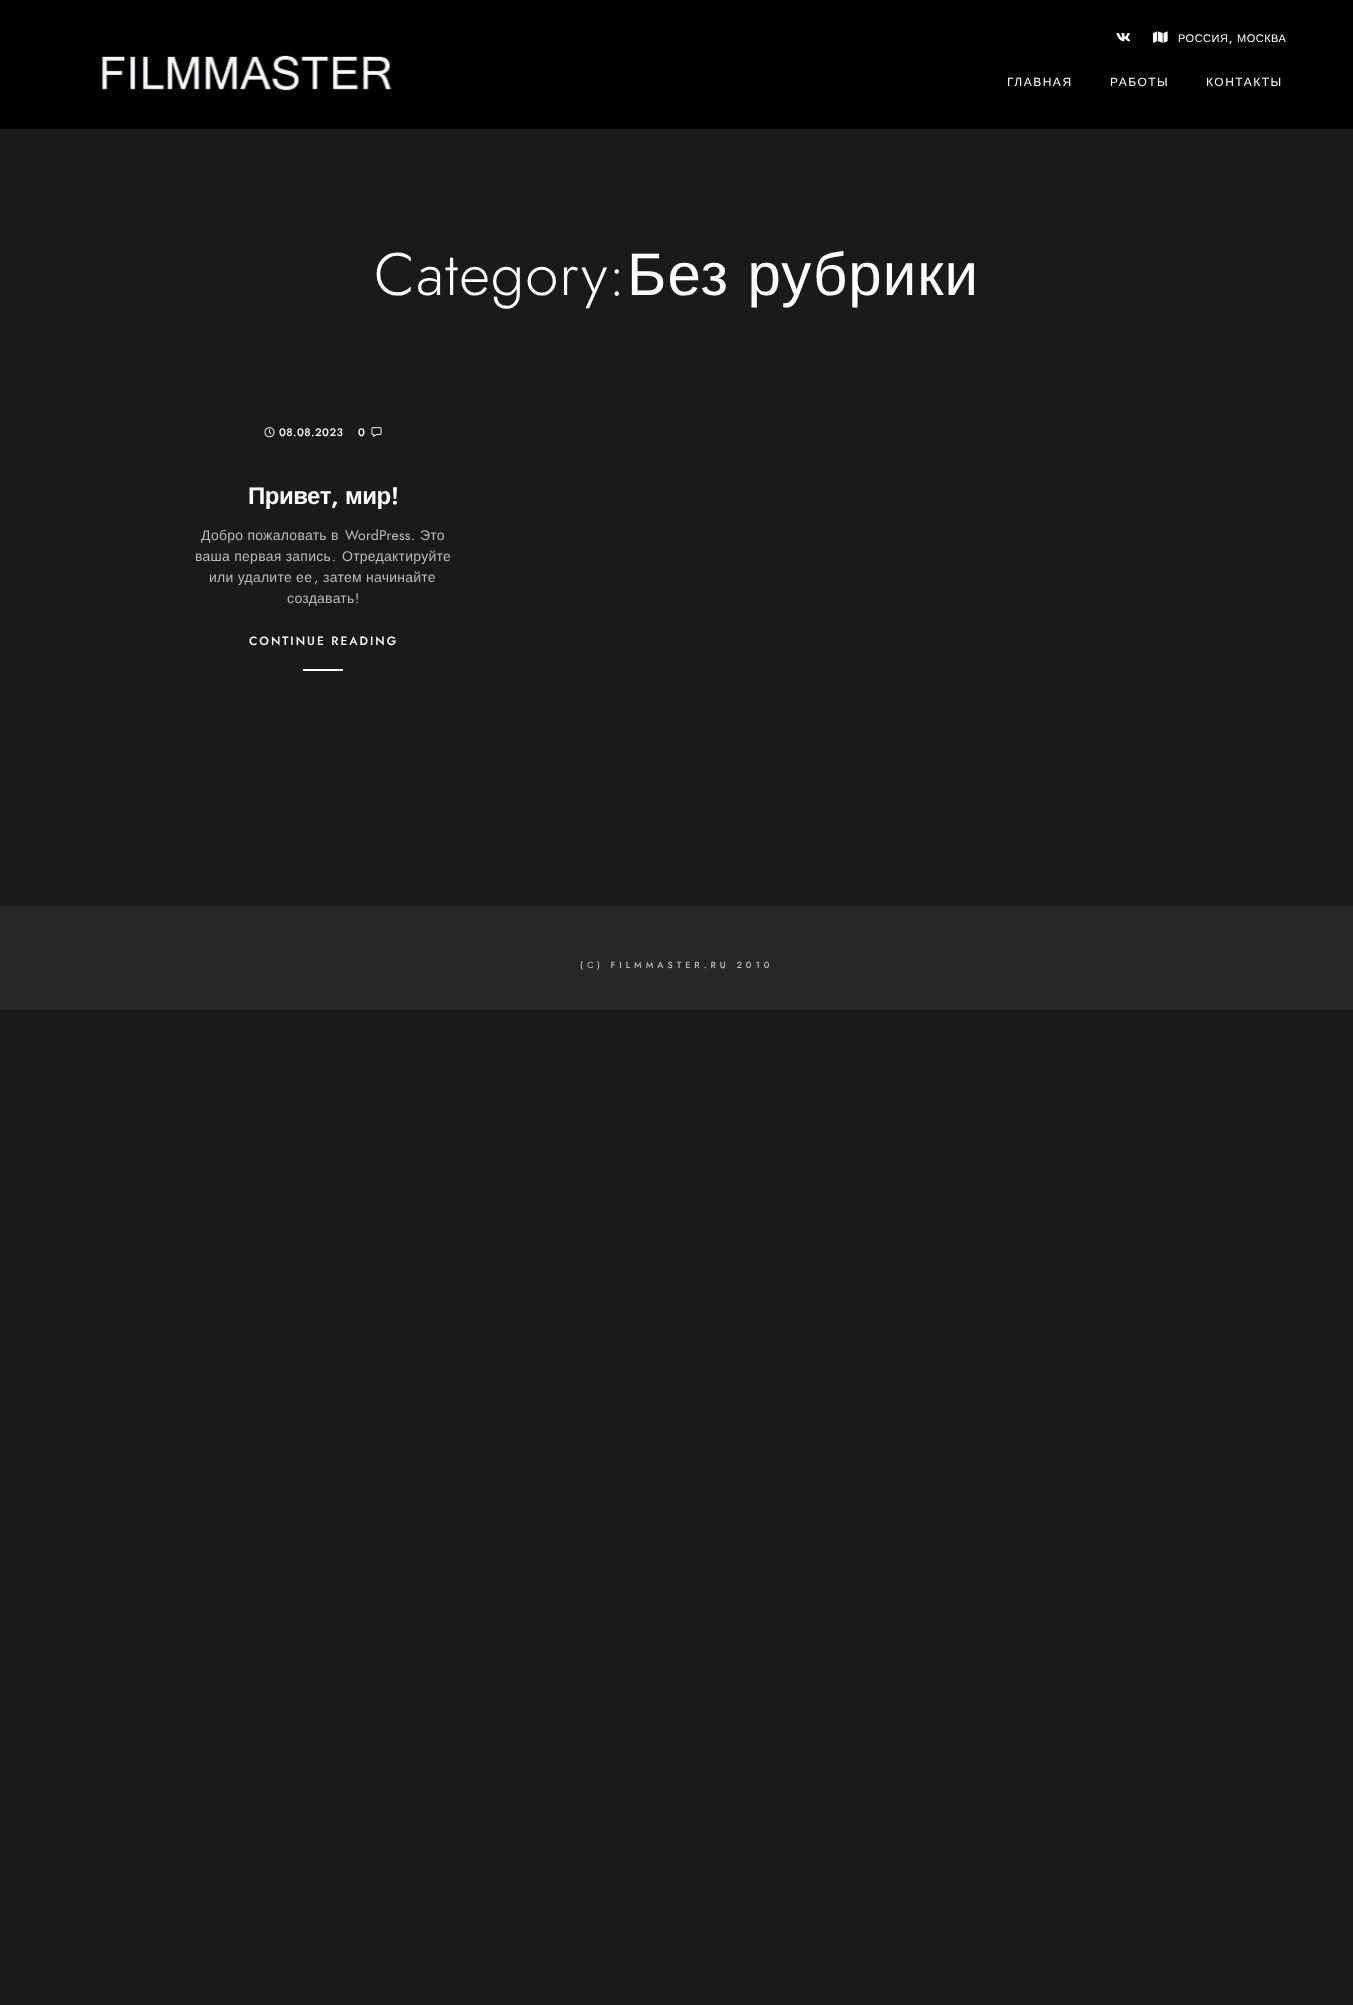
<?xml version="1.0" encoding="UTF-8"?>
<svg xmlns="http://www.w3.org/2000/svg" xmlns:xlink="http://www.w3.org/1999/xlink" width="1353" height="2005">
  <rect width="100%" height="100%" fill="#1a1a1a" />
  <rect width="1353" height="129" fill="#000000" />
  <image x="1116" y="33" width="15" height="9" xlink:href="image1.png" />
  <image x="1153" y="31" width="15" height="12" xlink:href="image2.png" />
  <image x="101" y="55" width="291" height="36" xlink:href="image3.png" />
  <rect x="167" y="460" width="313" height="1" fill="#171717" />
  <image x="264" y="427" width="11" height="11" xlink:href="image4.png" />
  <image x="371" y="427" width="11" height="11" xlink:href="image5.png" />
  <rect x="303" y="669" width="40" height="2" fill="#ffffff" />
  <rect y="906" width="1353" height="104" fill="#272727" />
  <text x="1178" y="42" style="font-family: Liberation Sans; font-size: 11px; letter-spacing: 0.5px; fill: #ffffff">РОССИЯ</text>
  <text x="1229" y="42" style="font-family: Jost; font-size: 11px; font-weight: 500; letter-spacing: 0.5px; fill: #ffffff">,</text>
  <text x="1237" y="42" style="font-family: Liberation Sans; font-size: 11px; letter-spacing: 0.5px; fill: #ffffff">МОСКВА</text>
  <text x="1007" y="86" style="font-family: Liberation Sans; font-size: 12px; letter-spacing: 1.5px; fill: #ffffff">ГЛАВНАЯ</text>
  <text x="1110" y="86" style="font-family: Liberation Sans; font-size: 12px; letter-spacing: 1.5px; fill: #ffffff">РАБОТЫ</text>
  <text x="1206" y="86" style="font-family: Liberation Sans; font-size: 12px; letter-spacing: 1.5px; fill: #ffffff">КОНТАКТЫ</text>
  <text x="374" y="295" style="font-family: Jost; font-size: 60px; font-weight: 300; letter-spacing: 1px; fill: #ffffff">Category:</text>
  <text x="627" y="295" word-spacing="1" style="font-family: Liberation Sans; font-size: 60px; letter-spacing: 1px; fill: #ffffff">Без рубрики</text>
  <text x="279" y="436" style="font-family: Jost; font-size: 11px; font-weight: 500; letter-spacing: 0.5px; fill: #ffffff">08.08.2023</text>
  <text x="358" y="436" style="font-family: Jost; font-size: 11px; font-weight: 500; letter-spacing: 0.5px; fill: #ffffff">0</text>
  <text x="248" y="504" style="font-family: Liberation Sans; font-size: 24px; font-weight: bold; letter-spacing: -0.5px; fill: #ffffff">Привет</text>
  <text x="331" y="504" style="font-family: Jost; font-size: 24px; font-weight: 600; letter-spacing: -0.5px; fill: #ffffff">,</text>
  <text x="345" y="504" style="font-family: Liberation Sans; font-size: 24px; font-weight: bold; letter-spacing: -0.5px; fill: #ffffff">мир</text>
  <text x="391" y="504" style="font-family: Jost; font-size: 24px; font-weight: 600; letter-spacing: -0.5px; fill: #ffffff">!</text>
  <text x="201" y="540" style="font-family: Liberation Sans; font-size: 14px; letter-spacing: 0.25px; fill: #bababa">Добро пожаловать в</text>
  <text x="345" y="540" style="font-family: Jost; font-size: 14px; letter-spacing: 0.25px; fill: #bababa">WordPress.</text>
  <text x="420" y="540" style="font-family: Liberation Sans; font-size: 14px; letter-spacing: 0.25px; fill: #bababa">Это</text>
  <text x="195" y="561" style="font-family: Liberation Sans; font-size: 14px; letter-spacing: 0.25px; fill: #bababa">ваша первая запись</text>
  <text x="332" y="561" style="font-family: Jost; font-size: 14px; letter-spacing: 0.25px; fill: #bababa">.</text>
  <text x="342" y="561" style="font-family: Liberation Sans; font-size: 14px; letter-spacing: 0.25px; fill: #bababa">Отредактируйте</text>
  <text x="209" y="582" style="font-family: Liberation Sans; font-size: 14px; letter-spacing: 0.25px; fill: #bababa">или удалите ее</text>
  <text x="314" y="582" style="font-family: Jost; font-size: 14px; letter-spacing: 0.25px; fill: #bababa">,</text>
  <text x="323" y="582" style="font-family: Liberation Sans; font-size: 14px; letter-spacing: 0.25px; fill: #bababa">затем начинайте</text>
  <text x="287" y="603" style="font-family: Liberation Sans; font-size: 14px; letter-spacing: 0.25px; fill: #bababa">создавать</text>
  <text x="355" y="603" style="font-family: Jost; font-size: 14px; letter-spacing: 0.25px; fill: #bababa">!</text>
  <text x="249" y="645" style="font-family: Jost; font-size: 12px; font-weight: 500; letter-spacing: 2px; fill: #ffffff">CONTINUE READING</text>
  <text x="580" y="968" style="font-family: Jost; font-size: 9px; font-weight: 500; letter-spacing: 4px; fill: #bababa">(</text>
  <text x="587" y="968" style="font-family: Liberation Sans; font-size: 9px; letter-spacing: 4px; fill: #bababa">С</text>
  <text x="597" y="968" style="font-family: Jost; font-size: 9px; font-weight: 500; letter-spacing: 4px; fill: #bababa">) FILMMASTER.RU 2010</text>
</svg>
